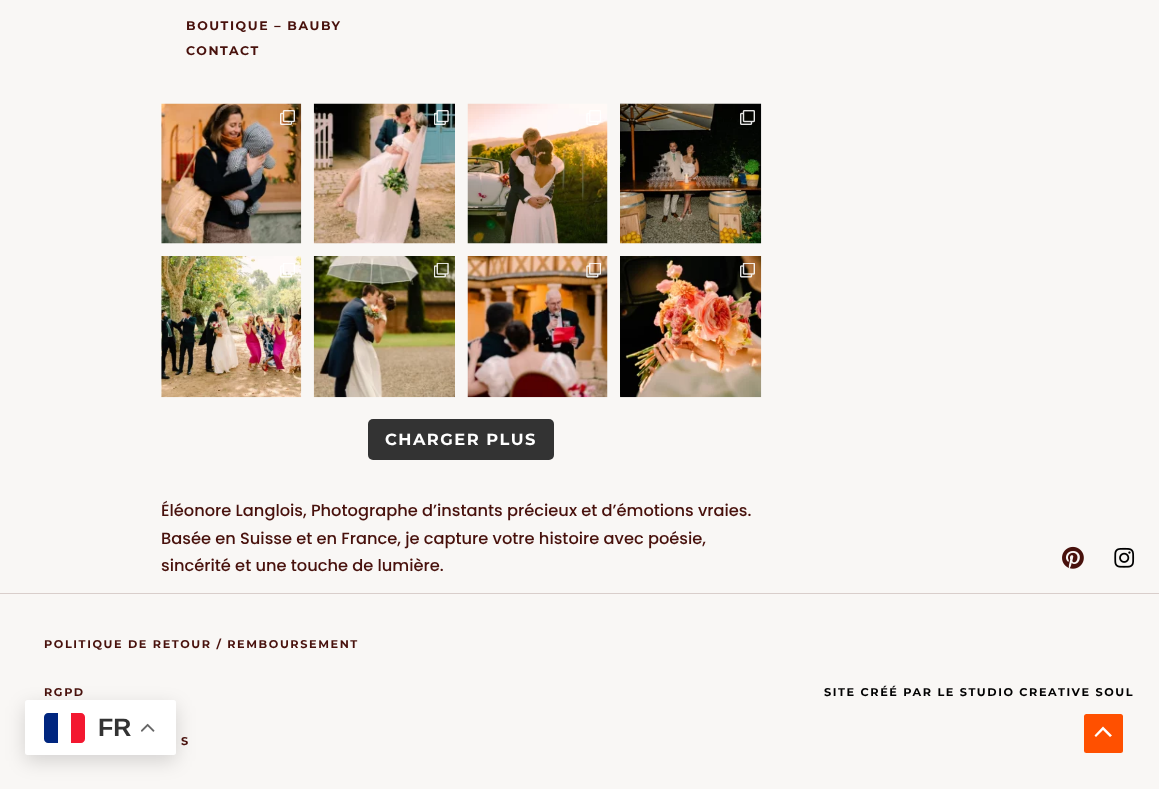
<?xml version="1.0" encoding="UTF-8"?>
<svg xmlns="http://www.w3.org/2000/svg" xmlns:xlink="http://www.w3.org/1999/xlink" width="1159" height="789">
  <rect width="100%" height="100%" fill="#f9f7f5" />
  <image x="161" y="103" width="141" height="141" xlink:href="image1.png" />
  <image x="280" y="110" width="15" height="15" xlink:href="image2.png" />
  <image x="313" y="103" width="142" height="141" xlink:href="image3.png" />
  <image x="434" y="110" width="15" height="15" xlink:href="image4.png" />
  <image x="467" y="103" width="141" height="141" xlink:href="image5.png" />
  <image x="586" y="110" width="15" height="15" xlink:href="image6.png" />
  <image x="620" y="103" width="142" height="141" xlink:href="image7.png" />
  <image x="740" y="110" width="15" height="15" xlink:href="image8.png" />
  <image x="161" y="256" width="141" height="142" xlink:href="image9.png" />
  <image x="280" y="263" width="15" height="15" xlink:href="image10.png" />
  <image x="313" y="256" width="142" height="142" xlink:href="image11.png" />
  <image x="434" y="263" width="15" height="15" xlink:href="image12.png" />
  <image x="467" y="256" width="141" height="142" xlink:href="image13.png" />
  <image x="586" y="263" width="15" height="15" xlink:href="image14.png" />
  <image x="620" y="256" width="142" height="142" xlink:href="image15.png" />
  <image x="740" y="263" width="15" height="15" xlink:href="image16.png" />
  <rect x="368" y="419" width="186" height="41" rx="5" fill="#333333" />
  <image x="1062" y="546" width="22" height="23" xlink:href="image17.png" />
  <image x="1114" y="547" width="21" height="21" xlink:href="image18.png" />
  <rect y="593" width="1159" height="1" fill="#d9cecb" />
  <rect x="25" y="706" width="151" height="55" rx="2.5" fill="#000000" fill-opacity="0.15" filter="blur(9.5px)" />
  <rect x="25" y="700" width="151" height="55" rx="2.5" fill="#ffffff" />
  <path d="M 48 713 h 10 v 30 h -10 c -2 0 -4 -2 -4 -4 v -22 c 0 -2 2 -4 4 -4 z" fill="#00267f" />
  <path d="M 71 713 h 10 c 2 0 4 2 4 4 v 22 c 0 2 -2 4 -4 4 h -10 z" fill="#f31830" />
  <image x="141" y="723" width="14" height="9" xlink:href="image19.png" />
  <rect x="1084" y="714" width="39" height="39" rx="2.5" fill="#ff5000" />
  <path d="M 1112 735.5 l -9 -9 l -8.5 9 l 1.5 1.5 l 7 -7 l 7 7 z" fill="#ffffff" />
  <text x="186" y="30" style="font-family: Montserrat; font-size: 12.5px; font-weight: bold; letter-spacing: 1.6px; fill: #48110c">BOUTIQUE – BAUBY</text>
  <text x="186" y="55" style="font-family: Montserrat; font-size: 12.5px; font-weight: bold; letter-spacing: 1.6px; fill: #48110c">CONTACT</text>
  <text x="385" y="445" style="font-family: Montserrat; font-size: 16.25px; font-weight: bold; letter-spacing: 1.5px; fill: #ffffff">CHARGER PLUS</text>
  <text x="161" y="516" style="font-family: Poppins; font-size: 16.25px; font-weight: 500; fill: #48110c">Éléonore Langlois, Photographe d’instants précieux et d’émotions vraies.</text>
  <text x="161" y="544" style="font-family: Poppins; font-size: 16.25px; font-weight: 500; fill: #48110c">Basée en Suisse et en France, je capture votre histoire avec poésie,</text>
  <text x="161" y="571" style="font-family: Poppins; font-size: 16.25px; font-weight: 500; fill: #48110c">sincérité et une touche de lumière.</text>
  <text x="44" y="648" style="font-family: Montserrat; font-size: 11.25px; font-weight: bold; letter-spacing: 1.6px; fill: #48110c">POLITIQUE DE RETOUR / REMBOURSEMENT</text>
  <text x="44" y="696" style="font-family: Montserrat; font-size: 11.25px; font-weight: bold; letter-spacing: 1.6px; fill: #48110c">RGPD</text>
  <text x="181" y="745" style="font-family: Montserrat; font-size: 11.25px; font-weight: bold; letter-spacing: 1.6px; fill: #48110c">S</text>
  <text x="824" y="696" style="font-family: Montserrat; font-size: 11.25px; font-weight: bold; letter-spacing: 1.6px; fill: #010101">SITE CRÉÉ PAR LE STUDIO CREATIVE SOUL</text>
  <text x="98" y="736" style="font-family: Liberation Sans; font-size: 25px; font-weight: bold; fill: #333333">FR</text>
</svg>
